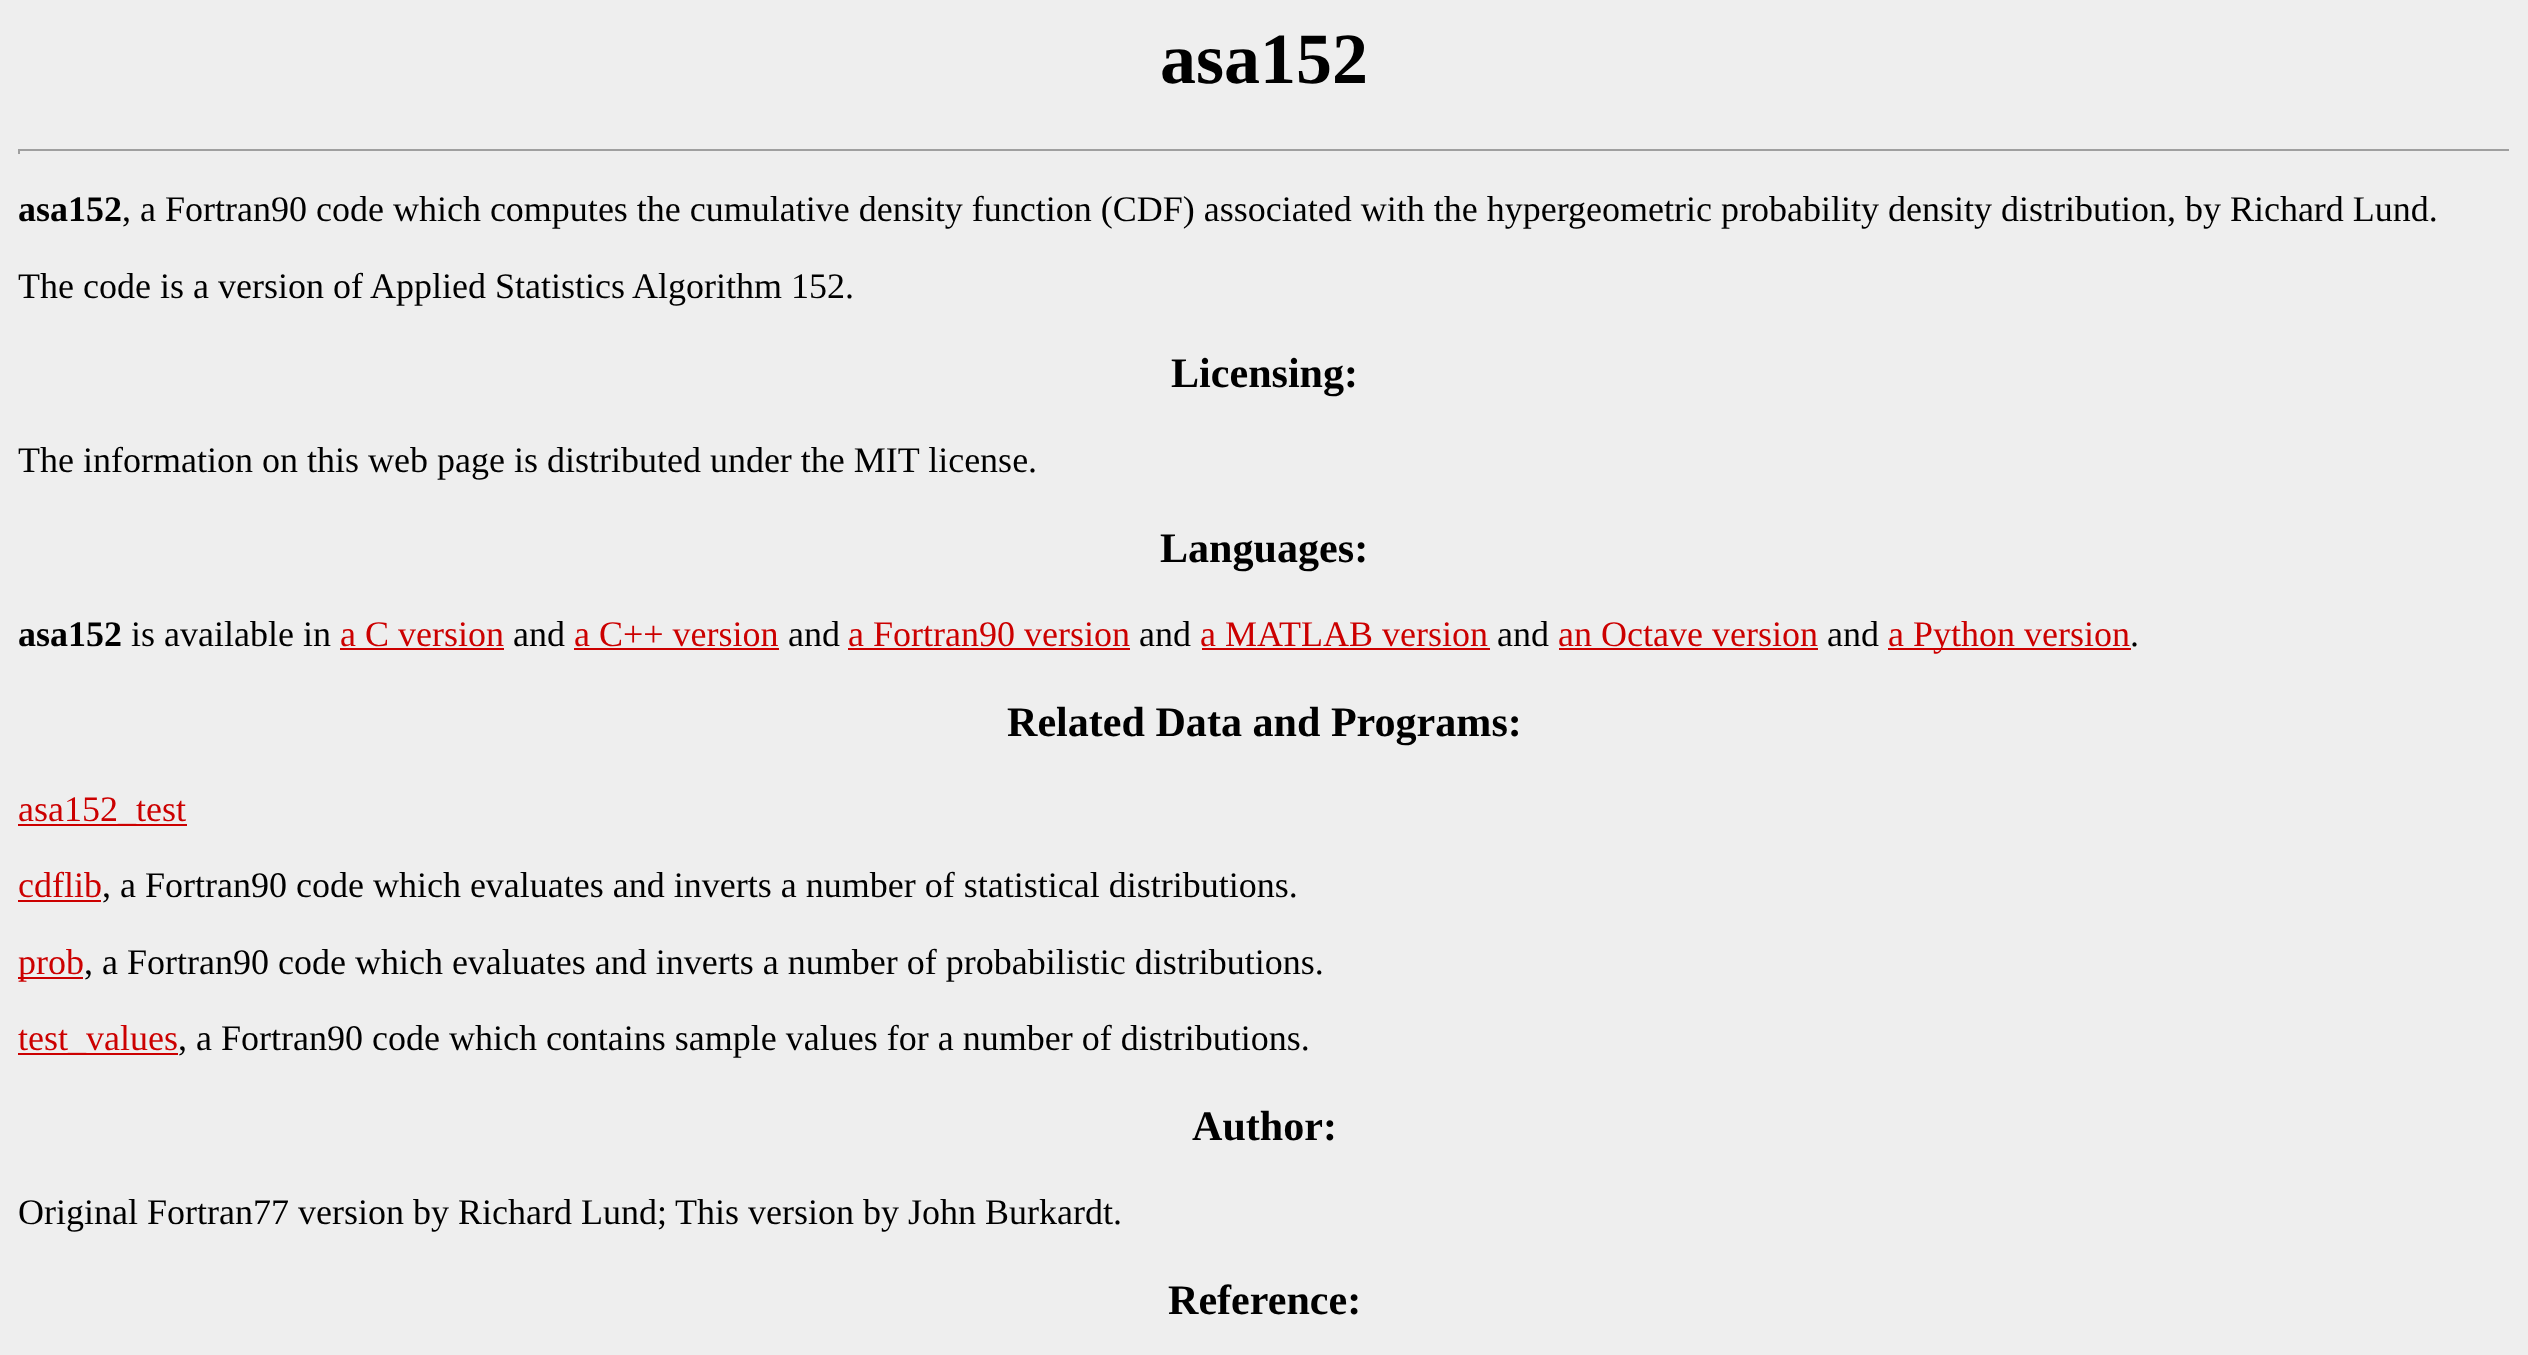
<?xml version="1.0" encoding="UTF-8"?>
<svg xmlns="http://www.w3.org/2000/svg" xmlns:xlink="http://www.w3.org/1999/xlink" width="2528" height="1355">
  <rect width="100%" height="100%" fill="#eeeeee" />
  <rect x="18" y="149" width="2493" height="2" fill="#9f9f9f" />
  <rect x="2509" y="149" width="2" height="5" fill="#eeeeee" />
  <rect x="18" y="149" width="2" height="5" fill="#9f9f9f" />
  <rect x="340" y="648" width="164" height="2" fill="#cc0000" />
  <rect x="574" y="648" width="205" height="2" fill="#cc0000" />
  <rect x="848" y="648" width="282" height="2" fill="#cc0000" />
  <rect x="1202" y="648" width="288" height="2" fill="#cc0000" />
  <rect x="1559" y="648" width="259" height="2" fill="#cc0000" />
  <rect x="1888" y="648" width="243" height="2" fill="#cc0000" />
  <rect x="18" y="824" width="169" height="2" fill="#cc0000" />
  <rect x="18" y="900" width="83" height="2" fill="#cc0000" />
  <rect x="18" y="977" width="65" height="2" fill="#cc0000" />
  <rect x="18" y="1053" width="160" height="2" fill="#cc0000" />
  <text x="1160" y="83" style="font-family: Liberation Serif; font-size: 72px; font-weight: bold; fill: #000000">asa152</text>
  <text x="18" y="221" style="font-family: Liberation Serif; font-size: 36px; font-weight: bold; fill: #000000">asa152</text>
  <text x="122" y="221" style="font-family: Liberation Serif; font-size: 36px; fill: #000000">, a Fortran90 code which computes the cumulative density function (CDF) associated with the hypergeometric probability density distribution, by Richard Lund.</text>
  <text x="18" y="298" style="font-family: Liberation Serif; font-size: 36px; fill: #000000">The code is a version of Applied Statistics Algorithm 152.</text>
  <text x="1171" y="387" style="font-family: Liberation Serif; font-size: 42.1px; font-weight: bold; fill: #000000">Licensing:</text>
  <text x="18" y="472" style="font-family: Liberation Serif; font-size: 36px; fill: #000000">The information on this web page is distributed under the MIT license.</text>
  <text x="1160" y="562" style="font-family: Liberation Serif; font-size: 42.1px; font-weight: bold; fill: #000000">Languages:</text>
  <text x="18" y="646" style="font-family: Liberation Serif; font-size: 36px; font-weight: bold; fill: #000000">asa152</text>
  <text x="131" y="646" style="font-family: Liberation Serif; font-size: 36px; fill: #000000">is available in</text>
  <text x="340" y="646" style="font-family: Liberation Serif; font-size: 36px; fill: #cc0000">a C version</text>
  <text x="513" y="646" style="font-family: Liberation Serif; font-size: 36px; fill: #000000">and</text>
  <text x="574" y="646" style="font-family: Liberation Serif; font-size: 36px; fill: #cc0000">a C++ version</text>
  <text x="788" y="646" style="font-family: Liberation Serif; font-size: 36px; fill: #000000">and</text>
  <text x="848" y="646" style="font-family: Liberation Serif; font-size: 36px; fill: #cc0000">a Fortran90 version</text>
  <text x="1139" y="646" style="font-family: Liberation Serif; font-size: 36px; fill: #000000">and</text>
  <text x="1200" y="646" style="font-family: Liberation Serif; font-size: 36px; fill: #cc0000">a MATLAB version</text>
  <text x="1497" y="646" style="font-family: Liberation Serif; font-size: 36px; fill: #000000">and</text>
  <text x="1558" y="646" style="font-family: Liberation Serif; font-size: 36px; fill: #cc0000">an Octave version</text>
  <text x="1827" y="646" style="font-family: Liberation Serif; font-size: 36px; fill: #000000">and</text>
  <text x="1888" y="646" style="font-family: Liberation Serif; font-size: 36px; fill: #cc0000">a Python version</text>
  <text x="2130" y="646" style="font-family: Liberation Serif; font-size: 36px; fill: #000000">.</text>
  <text x="1007" y="736" style="font-family: Liberation Serif; font-size: 42.1px; font-weight: bold; fill: #000000">Related Data and Programs:</text>
  <text x="18" y="821" style="font-family: Liberation Serif; font-size: 36px; fill: #cc0000">asa152_test</text>
  <text x="18" y="897" style="font-family: Liberation Serif; font-size: 36px; fill: #cc0000">cdflib</text>
  <text x="102" y="897" style="font-family: Liberation Serif; font-size: 36px; fill: #000000">, a Fortran90 code which evaluates and inverts a number of statistical distributions.</text>
  <text x="18" y="974" style="font-family: Liberation Serif; font-size: 36px; fill: #cc0000">prob</text>
  <text x="84" y="974" style="font-family: Liberation Serif; font-size: 36px; fill: #000000">, a Fortran90 code which evaluates and inverts a number of probabilistic distributions.</text>
  <text x="18" y="1050" style="font-family: Liberation Serif; font-size: 36px; fill: #cc0000">test_values</text>
  <text x="178" y="1050" style="font-family: Liberation Serif; font-size: 36px; fill: #000000">, a Fortran90 code which contains sample values for a number of distributions.</text>
  <text x="1192" y="1140" style="font-family: Liberation Serif; font-size: 42.1px; font-weight: bold; fill: #000000">Author:</text>
  <text x="18" y="1224" style="font-family: Liberation Serif; font-size: 36px; fill: #000000">Original Fortran77 version by Richard Lund;</text>
  <text x="675" y="1224" style="font-family: Liberation Serif; font-size: 36px; fill: #000000">This version by John Burkardt.</text>
  <text x="1168" y="1314" style="font-family: Liberation Serif; font-size: 42.1px; font-weight: bold; fill: #000000">Reference:</text>
</svg>
